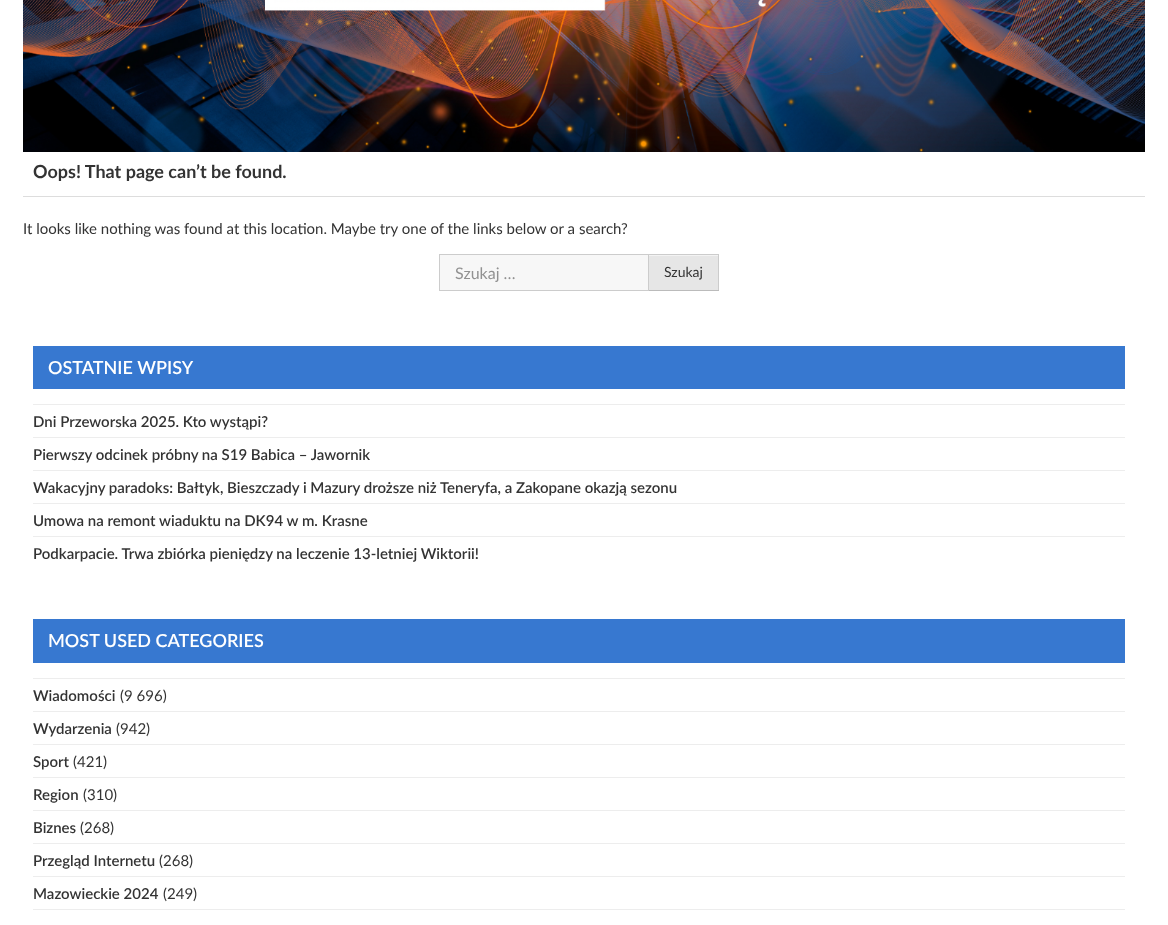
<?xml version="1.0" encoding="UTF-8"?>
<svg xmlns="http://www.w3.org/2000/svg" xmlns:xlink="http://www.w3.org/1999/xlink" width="1168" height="925">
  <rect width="100%" height="100%" fill="#ffffff" />
  <image x="23" y="0" width="1122" height="152" xlink:href="image1.png" />
  <rect x="23" y="196" width="1122" height="1" fill="#dddddd" />
  <rect x="440" y="255" width="208" height="35" fill="#f7f7f7" />
  <rect x="439.5" y="254.5" width="244" height="36" fill="none" stroke="#cccccc" />
  <rect x="649" y="256" width="69" height="34" fill="#e6e6e6" />
  <rect x="649" y="255" width="69" height="1" fill="#f3f3f3" />
  <rect x="684" y="254" width="35" height="1" fill="#cccccc" />
  <rect x="718" y="254" width="1" height="37" fill="#cccccc" />
  <rect x="648" y="290" width="71" height="1" fill="#bbbbbb" />
  <rect x="648" y="254" width="1" height="37" fill="#cccccc" />
  <rect x="33" y="346" width="1092" height="43" fill="#3778d0" />
  <rect x="33" y="404" width="1092" height="1" fill="#ededed" />
  <rect x="33" y="437" width="1092" height="1" fill="#ededed" />
  <rect x="33" y="470" width="1092" height="1" fill="#ededed" />
  <rect x="33" y="503" width="1092" height="1" fill="#ededed" />
  <rect x="33" y="536" width="1092" height="1" fill="#ededed" />
  <rect x="33" y="619" width="1092" height="44" fill="#3778d0" />
  <rect x="33" y="678" width="1092" height="1" fill="#ededed" />
  <rect x="33" y="711" width="1092" height="1" fill="#ededed" />
  <rect x="33" y="744" width="1092" height="1" fill="#ededed" />
  <rect x="33" y="777" width="1092" height="1" fill="#ededed" />
  <rect x="33" y="810" width="1092" height="1" fill="#ededed" />
  <rect x="33" y="843" width="1092" height="1" fill="#ededed" />
  <rect x="33" y="876" width="1092" height="1" fill="#ededed" />
  <rect x="33" y="909" width="1092" height="1" fill="#ededed" />
  <text x="33" y="178" style="font-family: Lato; font-size: 18px; font-weight: bold; fill: #333333">Oops! That page can’t be found.</text>
  <text x="23" y="234" style="font-family: Lato; font-size: 15px; fill: #333333">It looks like nothing was found at this location. Maybe try one of the links below or a search?</text>
  <text x="455" y="279" style="font-family: Lato; font-size: 16px; fill: #919191">Szukaj …</text>
  <text x="664" y="277" style="font-family: Lato; font-size: 14px; fill: #333333">Szukaj</text>
  <text x="48" y="374" style="font-family: Lato; font-size: 18px; font-weight: 600; fill: #ffffff">OSTATNIE WPISY</text>
  <text x="33" y="427" style="font-family: Lato; font-size: 15px; font-weight: 600; fill: #333333">Dni Przeworska 2025. Kto wystąpi?</text>
  <text x="33" y="460" style="font-family: Lato; font-size: 15px; font-weight: 600; fill: #333333">Pierwszy odcinek próbny na S19 Babica – Jawornik</text>
  <text x="33" y="493" style="font-family: Lato; font-size: 15px; font-weight: 600; fill: #333333">Wakacyjny paradoks: Bałtyk, Bieszczady i Mazury droższe niż Teneryfa, a Zakopane okazją sezonu</text>
  <text x="33" y="526" style="font-family: Lato; font-size: 15px; font-weight: 600; fill: #333333">Umowa na remont wiaduktu na DK94 w m. Krasne</text>
  <text x="33" y="559" style="font-family: Lato; font-size: 15px; font-weight: 600; fill: #333333">Podkarpacie. Trwa zbiórka pieniędzy na leczenie 13-letniej Wiktorii!</text>
  <text x="48" y="647" style="font-family: Lato; font-size: 18px; font-weight: 600; fill: #ffffff">MOST USED CATEGORIES</text>
  <text x="33" y="701" style="font-family: Lato; font-size: 15px; font-weight: 600; fill: #333333">Wiadomości</text>
  <text x="120" y="701" style="font-family: Lato; font-size: 15px; fill: #333333">(9 696)</text>
  <text x="33" y="734" style="font-family: Lato; font-size: 15px; font-weight: 600; fill: #333333">Wydarzenia</text>
  <text x="116" y="734" style="font-family: Lato; font-size: 15px; fill: #333333">(942)</text>
  <text x="33" y="767" style="font-family: Lato; font-size: 15px; font-weight: 600; fill: #333333">Sport</text>
  <text x="73" y="767" style="font-family: Lato; font-size: 15px; fill: #333333">(421)</text>
  <text x="33" y="800" style="font-family: Lato; font-size: 15px; font-weight: 600; fill: #333333">Region</text>
  <text x="83" y="800" style="font-family: Lato; font-size: 15px; fill: #333333">(310)</text>
  <text x="33" y="833" style="font-family: Lato; font-size: 15px; font-weight: 600; fill: #333333">Biznes</text>
  <text x="80" y="833" style="font-family: Lato; font-size: 15px; fill: #333333">(268)</text>
  <text x="33" y="866" style="font-family: Lato; font-size: 15px; font-weight: 600; fill: #333333">Przegląd Internetu</text>
  <text x="159" y="866" style="font-family: Lato; font-size: 15px; fill: #333333">(268)</text>
  <text x="33" y="899" style="font-family: Lato; font-size: 15px; font-weight: 600; fill: #333333">Mazowieckie 2024</text>
  <text x="163" y="899" style="font-family: Lato; font-size: 15px; fill: #333333">(249)</text>
</svg>
